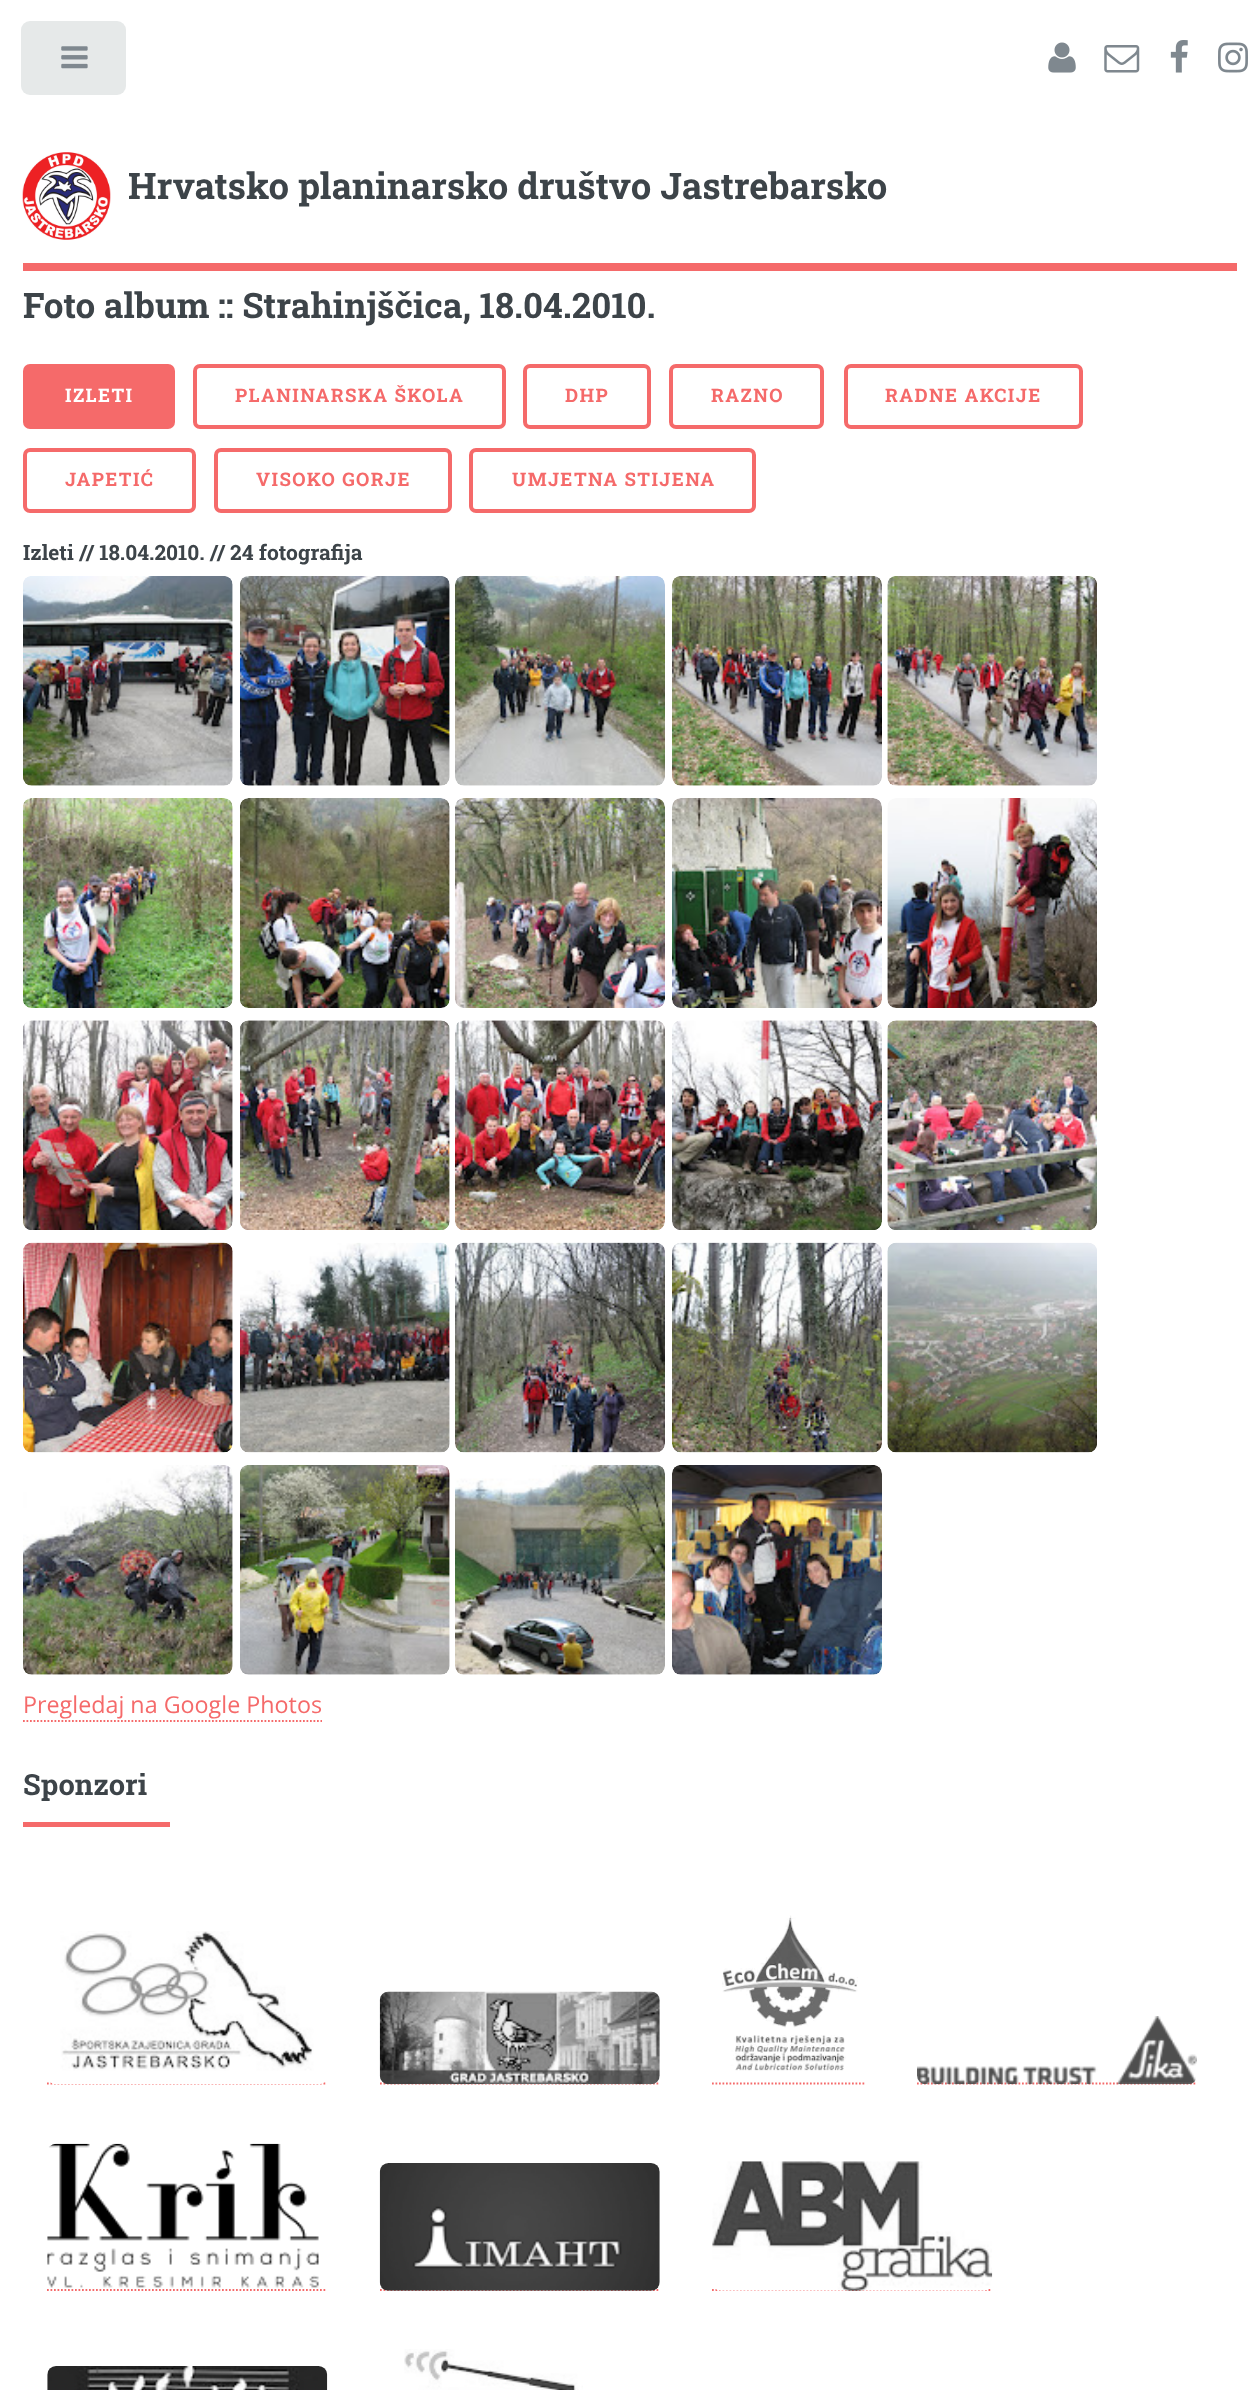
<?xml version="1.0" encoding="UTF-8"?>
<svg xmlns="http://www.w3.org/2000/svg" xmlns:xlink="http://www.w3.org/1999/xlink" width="1259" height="2390">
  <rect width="100%" height="100%" fill="#ffffff" />
  <rect x="21" y="21" width="105" height="74" rx="9" fill="#e6e9e9" />
  <image x="61" y="46" width="27" height="23" xlink:href="image1.png" />
  <rect x="23" y="263" width="1214" height="8" fill="#f56a6a" />
  <image x="1048" y="42" width="28" height="31" xlink:href="image2.png" />
  <image x="1104" y="45" width="36" height="28" xlink:href="image3.png" />
  <image x="1170" y="40" width="18" height="33" xlink:href="image4.png" />
  <image x="1218" y="42" width="30" height="31" xlink:href="image5.png" />
  <image x="22" y="152" width="89" height="88" xlink:href="image6.png" />
  <rect x="23" y="364" width="152" height="65" rx="7" fill="#f56a6a" />
  <rect x="195" y="366" width="309" height="61" rx="5" fill="none" stroke="#f56a6a" stroke-width="4" />
  <rect x="525" y="366" width="124" height="61" rx="5" fill="none" stroke="#f56a6a" stroke-width="4" />
  <rect x="671" y="366" width="151" height="61" rx="5" fill="none" stroke="#f56a6a" stroke-width="4" />
  <rect x="846" y="366" width="235" height="61" rx="5" fill="none" stroke="#f56a6a" stroke-width="4" />
  <rect x="25" y="450" width="169" height="61" rx="5" fill="none" stroke="#f56a6a" stroke-width="4" />
  <rect x="216" y="450" width="234" height="61" rx="5" fill="none" stroke="#f56a6a" stroke-width="4" />
  <rect x="471" y="450" width="283" height="61" rx="5" fill="none" stroke="#f56a6a" stroke-width="4" />
  <image x="23" y="576" width="210" height="210" xlink:href="image7.png" />
  <image x="240" y="576" width="210" height="210" xlink:href="image8.png" />
  <image x="455" y="576" width="210" height="210" xlink:href="image9.png" />
  <image x="672" y="576" width="210" height="210" xlink:href="image10.png" />
  <image x="887" y="576" width="210" height="210" xlink:href="image11.png" />
  <image x="23" y="798" width="210" height="210" xlink:href="image12.png" />
  <image x="240" y="798" width="210" height="210" xlink:href="image13.png" />
  <image x="455" y="798" width="210" height="210" xlink:href="image14.png" />
  <image x="672" y="798" width="210" height="210" xlink:href="image15.png" />
  <image x="887" y="798" width="210" height="210" xlink:href="image16.png" />
  <image x="23" y="1020" width="210" height="210" xlink:href="image17.png" />
  <image x="240" y="1020" width="210" height="210" xlink:href="image18.png" />
  <image x="455" y="1020" width="210" height="210" xlink:href="image19.png" />
  <image x="672" y="1020" width="210" height="210" xlink:href="image20.png" />
  <image x="887" y="1020" width="210" height="210" xlink:href="image21.png" />
  <image x="23" y="1242" width="210" height="211" xlink:href="image22.png" />
  <image x="240" y="1242" width="210" height="211" xlink:href="image23.png" />
  <image x="455" y="1242" width="210" height="211" xlink:href="image24.png" />
  <image x="672" y="1242" width="210" height="211" xlink:href="image25.png" />
  <image x="887" y="1242" width="210" height="211" xlink:href="image26.png" />
  <image x="23" y="1465" width="210" height="210" xlink:href="image27.png" />
  <image x="240" y="1465" width="210" height="210" xlink:href="image28.png" />
  <image x="455" y="1465" width="210" height="210" xlink:href="image29.png" />
  <image x="672" y="1465" width="210" height="210" xlink:href="image30.png" />
  <path d="M 23 1721 h 299" fill="none" stroke="#f56a6a" stroke-width="1.8" stroke-dasharray="1.75 1.75" />
  <rect x="23" y="1822" width="147" height="5" fill="#f56a6a" />
  <path d="M 47 2083.5 h 280" fill="none" stroke="#f56a6a" stroke-width="1.8" stroke-dasharray="1.75 1.75" />
  <image x="50" y="1931" width="274" height="153" xlink:href="image31.png" />
  <path d="M 380 2083.5 h 280" fill="none" stroke="#f56a6a" stroke-width="1.8" stroke-dasharray="1.75 1.75" />
  <image x="379" y="1991" width="281" height="94" xlink:href="image32.png" />
  <path d="M 712 2083.5 h 152.5" fill="none" stroke="#f56a6a" stroke-width="1.8" stroke-dasharray="1.75 1.75" />
  <image x="722" y="1915" width="136" height="156" xlink:href="image33.png" />
  <path d="M 917 2083.5 h 280" fill="none" stroke="#f56a6a" stroke-width="1.8" stroke-dasharray="1.75 1.75" />
  <image x="917" y="2016" width="280" height="69" xlink:href="image34.png" />
  <path d="M 47 2290 h 280" fill="none" stroke="#f56a6a" stroke-width="1.8" stroke-dasharray="1.75 1.75" />
  <image x="47" y="2143" width="272" height="145" xlink:href="image35.png" />
  <path d="M 380 2290 h 280" fill="none" stroke="#f56a6a" stroke-width="1.8" stroke-dasharray="1.75 1.75" />
  <image x="379" y="2163" width="281" height="128" xlink:href="image36.png" />
  <path d="M 712 2290 h 280" fill="none" stroke="#f56a6a" stroke-width="1.8" stroke-dasharray="1.75 1.75" />
  <image x="712" y="2161" width="281" height="130" xlink:href="image37.png" />
  <image x="47" y="2366" width="281" height="24" xlink:href="image38.png" />
  <image x="404" y="2349" width="179" height="41" xlink:href="image39.png" />
  <text x="128" y="199" style="font-family: Roboto Slab; font-size: 36.5px; font-weight: bold; fill: #3d4449">Hrvatsko planinarsko društvo Jastrebarsko</text>
  <text x="23" y="318" style="font-family: Roboto Slab; font-size: 35px; font-weight: bold; fill: #3d4449">Foto album :: Strahinjščica, 18.04.2010.</text>
  <text x="65" y="402" style="font-family: Roboto Slab; font-size: 18.75px; font-weight: bold; letter-spacing: 1.4px; fill: #ffffff">IZLETI</text>
  <text x="235" y="402" style="font-family: Roboto Slab; font-size: 18.75px; font-weight: bold; letter-spacing: 1.4px; fill: #f56a6a">PLANINARSKA ŠKOLA</text>
  <text x="565" y="402" style="font-family: Roboto Slab; font-size: 18.75px; font-weight: bold; letter-spacing: 1.4px; fill: #f56a6a">DHP</text>
  <text x="711" y="402" style="font-family: Roboto Slab; font-size: 18.75px; font-weight: bold; letter-spacing: 1.4px; fill: #f56a6a">RAZNO</text>
  <text x="885" y="402" style="font-family: Roboto Slab; font-size: 18.75px; font-weight: bold; letter-spacing: 1.4px; fill: #f56a6a">RADNE AKCIJE</text>
  <text x="65" y="486" style="font-family: Roboto Slab; font-size: 18.75px; font-weight: bold; letter-spacing: 1.4px; fill: #f56a6a">JAPETIĆ</text>
  <text x="256" y="486" style="font-family: Roboto Slab; font-size: 18.75px; font-weight: bold; letter-spacing: 1.4px; fill: #f56a6a">VISOKO GORJE</text>
  <text x="512" y="486" style="font-family: Roboto Slab; font-size: 18.75px; font-weight: bold; letter-spacing: 1.4px; fill: #f56a6a">UMJETNA STIJENA</text>
  <text x="23" y="560" style="font-family: Roboto Slab; font-size: 21px; font-weight: bold; fill: #3d4449">Izleti // 18.04.2010. // 24 fotografija</text>
  <text x="23" y="1713" style="font-family: Open Sans; font-size: 23.3px; fill: #f56a6a">Pregledaj na Google Photos</text>
  <text x="23" y="1795" style="font-family: Roboto Slab; font-size: 29px; font-weight: bold; fill: #3d4449">Sponzori</text>
</svg>
